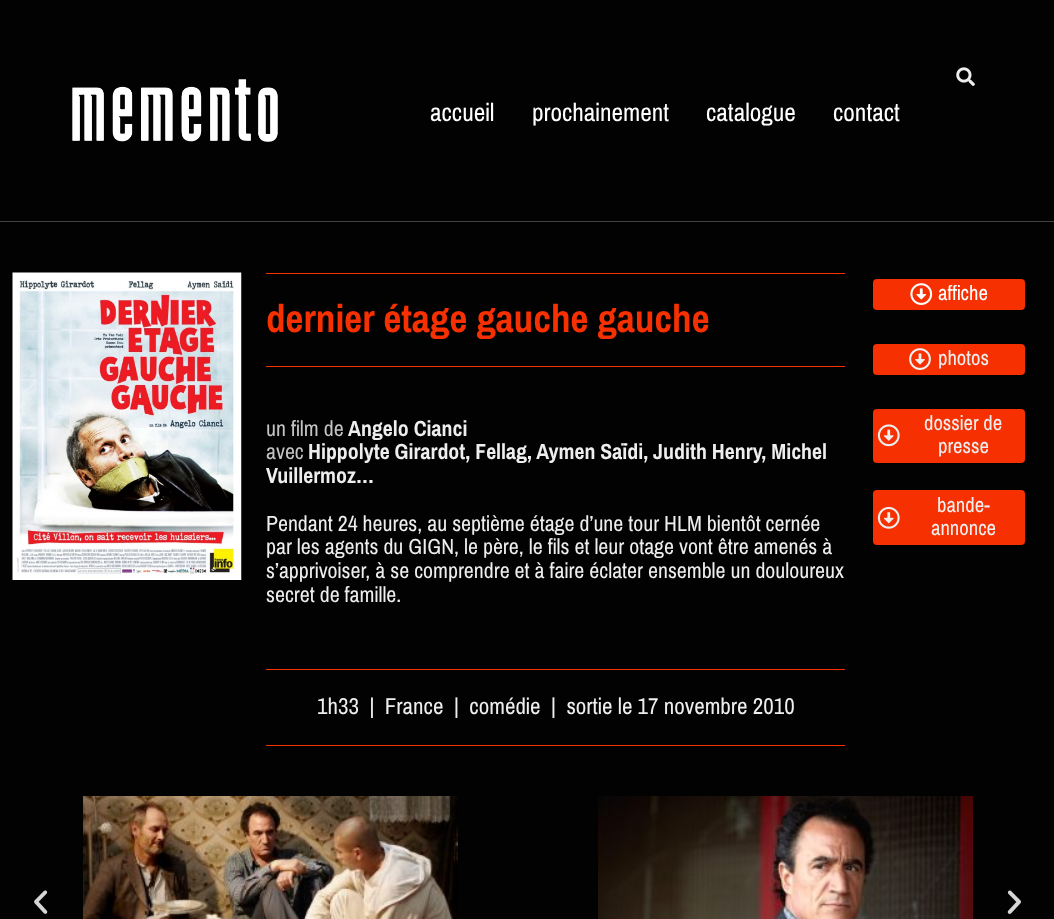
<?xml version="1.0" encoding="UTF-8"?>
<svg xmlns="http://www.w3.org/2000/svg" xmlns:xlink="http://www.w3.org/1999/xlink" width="1054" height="919">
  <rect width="100%" height="100%" fill="#020202" />
  <rect y="221" width="1054" height="1" fill="#414141" />
  <image x="956" y="67" width="19" height="19" xlink:href="image1.png" />
  <image x="72" y="79" width="206" height="63" xlink:href="image2.png" />
  <image x="12" y="272" width="230" height="308" xlink:href="image3.png" />
  <rect x="266" y="273" width="579" height="1" fill="#f63000" />
  <rect x="266" y="366" width="579" height="1" fill="#f63000" />
  <rect x="266" y="669" width="579" height="1" fill="#f63000" />
  <rect x="266" y="745" width="579" height="1" fill="#f63000" />
  <rect x="873" y="279" width="152" height="31" rx="4" fill="#f63000" />
  <image x="910" y="283" width="23" height="22" xlink:href="image4.png" />
  <rect x="873" y="344" width="152" height="31" rx="4" fill="#f63000" />
  <image x="909" y="348" width="22" height="22" xlink:href="image5.png" />
  <rect x="873" y="409" width="152" height="54" rx="4" fill="#f63000" />
  <image x="877" y="424" width="23" height="23" xlink:href="image6.png" />
  <rect x="873" y="490" width="152" height="55" rx="4" fill="#f63000" />
  <image x="877" y="506" width="23" height="23" xlink:href="image7.png" />
  <image x="34" y="890" width="14" height="24" xlink:href="image8.png" />
  <image x="83" y="796" width="375" height="123" xlink:href="image9.png" />
  <image x="598" y="796" width="375" height="123" xlink:href="image10.png" />
  <image x="1007" y="890" width="14" height="24" xlink:href="image11.png" />
  <text x="430" y="121" style="font-family: Pragati Narrow; font-size: 27.5px; fill: #ffffff">accueil</text>
  <text x="532" y="121" style="font-family: Pragati Narrow; font-size: 27.5px; fill: #ffffff">prochainement</text>
  <text x="706" y="121" style="font-family: Pragati Narrow; font-size: 27.5px; fill: #ffffff">catalogue</text>
  <text x="833" y="121" style="font-family: Pragati Narrow; font-size: 27.5px; fill: #ffffff">contact</text>
  <text x="266" y="332" style="font-family: Pragati Narrow; font-size: 42.5px; font-weight: bold; fill: #f63000">dernier étage gauche gauche</text>
  <text x="266" y="436" style="font-family: Pragati Narrow; font-size: 23.75px; fill: #c4c4c4">un film de</text>
  <text x="348" y="436" style="font-family: Pragati Narrow; font-size: 23.75px; font-weight: bold; fill: #eeeeee">Angelo Cianci</text>
  <text x="266" y="459" style="font-family: Pragati Narrow; font-size: 23.75px; fill: #c4c4c4">avec</text>
  <text x="308" y="459" style="font-family: Pragati Narrow; font-size: 23.75px; font-weight: bold; fill: #eeeeee">Hippolyte Girardot, Fellag, Aymen Saïdi, Judith Henry, Michel</text>
  <text x="266" y="483" style="font-family: Pragati Narrow; font-size: 23.75px; font-weight: bold; fill: #eeeeee">Vuillermoz…</text>
  <text x="266" y="531" style="font-family: Pragati Narrow; font-size: 23.75px; fill: #eeeeee">Pendant 24 heures, au septième étage d’une tour HLM bientôt cernée</text>
  <text x="266" y="554" style="font-family: Pragati Narrow; font-size: 23.75px; fill: #eeeeee">par les agents du GIGN, le père, le fils et leur otage vont être amenés à</text>
  <text x="266" y="578" style="font-family: Pragati Narrow; font-size: 23.75px; fill: #eeeeee">s’apprivoiser, à se comprendre et à faire éclater ensemble un douloureux</text>
  <text x="266" y="602" style="font-family: Pragati Narrow; font-size: 23.75px; fill: #eeeeee">secret de famille.</text>
  <text x="317" y="714" style="font-family: Pragati Narrow; font-size: 25px; fill: #eeeeee" xml:space="preserve">1h33  |  France  |  comédie  |  sortie le 17 novembre 2010</text>
  <text x="938" y="300" style="font-family: Pragati Narrow; font-size: 22.5px; fill: #ffffff">affiche</text>
  <text x="938" y="365" style="font-family: Pragati Narrow; font-size: 22.5px; fill: #eeeeee">photos</text>
  <text x="924" y="430" style="font-family: Pragati Narrow; font-size: 22.5px; fill: #eeeeee">dossier de</text>
  <text x="938" y="453" style="font-family: Pragati Narrow; font-size: 22.5px; fill: #eeeeee">presse</text>
  <text x="937" y="512" style="font-family: Pragati Narrow; font-size: 22.5px; fill: #eeeeee">bande-</text>
  <text x="931" y="535" style="font-family: Pragati Narrow; font-size: 22.5px; fill: #eeeeee">annonce</text>
</svg>
